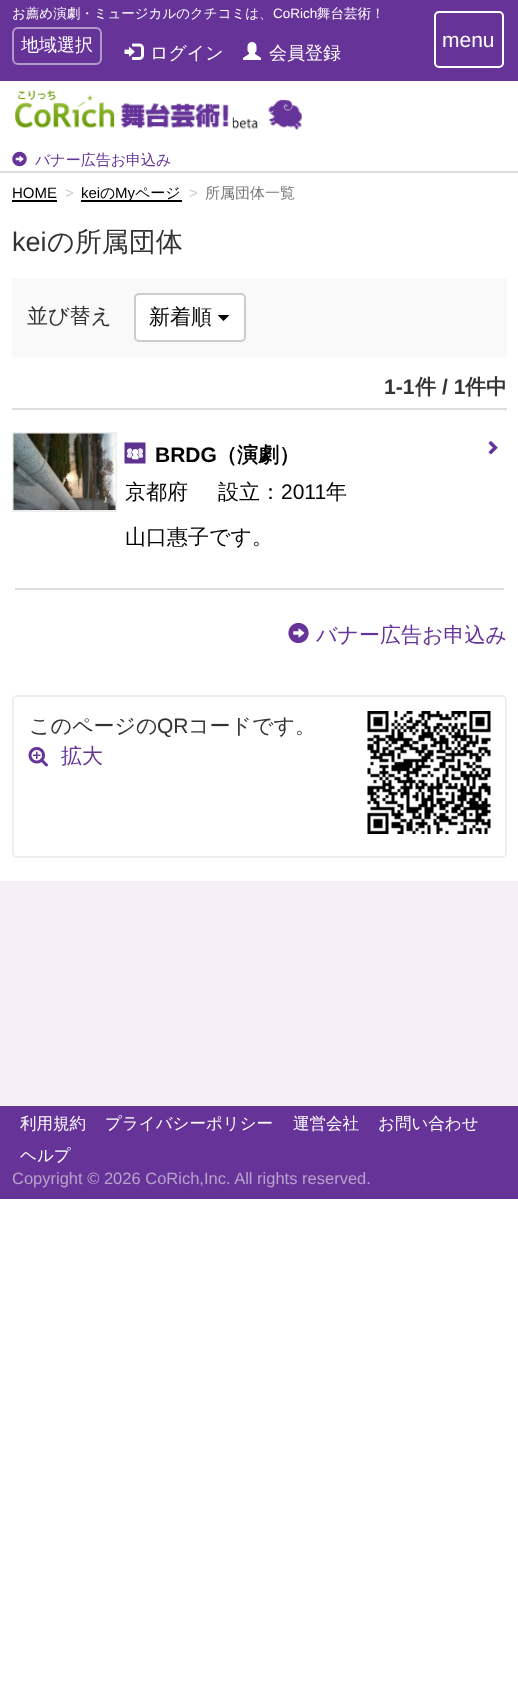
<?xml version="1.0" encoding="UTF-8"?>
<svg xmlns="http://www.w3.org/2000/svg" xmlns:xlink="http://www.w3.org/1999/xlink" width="518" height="1695">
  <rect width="100%" height="100%" fill="#ffffff" />
  <rect y="171" width="518" height="2" fill="#dddddd" />
  <rect width="518" height="81" fill="#663399" />
  <rect x="13" y="28" width="88" height="36" rx="5" fill="none" stroke="#b299cc" stroke-width="2" />
  <image x="124" y="43" width="20" height="17" xlink:href="image1.png" />
  <image x="243" y="42" width="18" height="18" xlink:href="image2.png" />
  <image x="15" y="90" width="288" height="40" xlink:href="image3.png" />
  <image x="12" y="151" width="15" height="16" xlink:href="image4.png" />
  <rect x="435" y="12" width="68" height="55" rx="4" fill="none" stroke="#ffffff" stroke-width="2" />
  <rect x="12" y="200" width="45" height="2" fill="#000000" />
  <rect x="81" y="200" width="101" height="2" fill="#000000" />
  <rect x="12" y="278" width="495" height="79" fill="#f9f9f9" />
  <rect x="135" y="294" width="110" height="47" rx="4" fill="#ffffff" stroke="#cccccc" stroke-width="2" />
  <path d="M 217.5 315 h 12 l -6 6 z" fill="#000000" />
  <rect x="12" y="408" width="495" height="2" fill="#dddddd" />
  <rect x="15" y="588" width="489" height="2" fill="#dddddd" />
  <rect x="13" y="433" width="103" height="78" fill="none" stroke="#eeeeee" stroke-width="2" />
  <image x="13" y="433" width="103" height="77" xlink:href="image5.png" />
  <image x="124" y="442" width="22" height="22" xlink:href="image6.png" />
  <image x="488" y="440" width="10" height="15" xlink:href="image7.png" />
  <image x="288" y="622" width="21" height="22" xlink:href="image8.png" />
  <rect x="13" y="696" width="493" height="161" rx="4" fill="none" stroke="#eeeeee" stroke-width="2" />
  <image x="367" y="711" width="124" height="123" xlink:href="image9.png" />
  <image x="28" y="747" width="20" height="20" xlink:href="image10.png" />
  <rect y="881" width="518" height="225" fill="#f7eff7" />
  <rect y="1106" width="518" height="93" fill="#663399" />
  <text x="12" y="18" style="font-family: WenQuanYi Zen Hei; font-size: 13.5px; font-weight: 500; fill: #ffffff">お薦め演劇・ミュージカルのクチコミは、</text>
  <text x="273" y="18" style="font-family: Liberation Sans; font-size: 13.5px; fill: #ffffff">CoRich</text>
  <text x="317" y="18" style="font-family: WenQuanYi Zen Hei; font-size: 13.5px; font-weight: 500; fill: #ffffff">舞台芸術！</text>
  <text x="21" y="51" style="font-family: WenQuanYi Zen Hei; font-size: 18px; font-weight: 500; fill: #ffffff">地域選択</text>
  <text x="150" y="59" style="font-family: WenQuanYi Zen Hei; font-size: 18px; font-weight: 500; fill: #ffffff">ログイン</text>
  <text x="269" y="59" style="font-family: WenQuanYi Zen Hei; font-size: 18px; font-weight: 500; fill: #ffffff">会員登録</text>
  <text x="35" y="165" style="font-family: WenQuanYi Zen Hei; font-size: 15px; font-weight: 500; fill: #663399">バナー広告お申込み</text>
  <text x="442" y="47" style="font-family: Liberation Sans; font-size: 21px; fill: #ffffff">menu</text>
  <text x="12" y="198" style="font-family: Liberation Sans; font-size: 15px; fill: #000000">HOME</text>
  <text x="65" y="198" style="font-family: Liberation Sans; font-size: 15px; fill: #cccccc">&gt;</text>
  <text x="81" y="198" style="font-family: Liberation Sans; font-size: 15px; fill: #000000">kei</text>
  <text x="100" y="198" style="font-family: WenQuanYi Zen Hei; font-size: 15px; font-weight: 500; fill: #000000">の</text>
  <text x="115" y="198" style="font-family: Liberation Sans; font-size: 15px; fill: #000000">My</text>
  <text x="135" y="198" style="font-family: WenQuanYi Zen Hei; font-size: 15px; font-weight: 500; fill: #000000">ページ</text>
  <text x="189" y="198" style="font-family: Liberation Sans; font-size: 15px; fill: #cccccc">&gt;</text>
  <text x="205" y="198" style="font-family: WenQuanYi Zen Hei; font-size: 15px; font-weight: 500; fill: #777777">所属団体一覧</text>
  <text x="12" y="251" style="font-family: Liberation Sans; font-size: 27px; fill: #333333">kei</text>
  <text x="47" y="251" style="font-family: WenQuanYi Zen Hei; font-size: 27px; font-weight: 500; fill: #333333">の所属団体</text>
  <text x="27" y="323" style="font-family: WenQuanYi Zen Hei; font-size: 21px; font-weight: 500; fill: #333333">並び替え</text>
  <text x="149" y="324" style="font-family: WenQuanYi Zen Hei; font-size: 21px; font-weight: 500; fill: #000000">新着順</text>
  <text x="384" y="394" style="font-family: Liberation Sans; font-size: 21px; font-weight: bold; fill: #333333">1-1</text>
  <text x="415" y="394" style="font-family: WenQuanYi Zen Hei; font-size: 21px; font-weight: bold; fill: #333333">件</text>
  <text x="442" y="394" style="font-family: Liberation Sans; font-size: 21px; font-weight: bold; fill: #333333">/ 1</text>
  <text x="465" y="394" style="font-family: WenQuanYi Zen Hei; font-size: 21px; font-weight: bold; fill: #333333">件中</text>
  <text x="155" y="462" style="font-family: Liberation Sans; font-size: 21px; font-weight: bold; fill: #000000">BRDG</text>
  <text x="216" y="462" style="font-family: WenQuanYi Zen Hei; font-size: 21px; font-weight: bold; fill: #000000">（演劇）</text>
  <text x="125" y="499" style="font-family: WenQuanYi Zen Hei; font-size: 21px; font-weight: 500; fill: #000000">京都府</text>
  <text x="218" y="499" style="font-family: WenQuanYi Zen Hei; font-size: 21px; font-weight: 500; fill: #000000">設立：</text>
  <text x="281" y="499" style="font-family: Liberation Sans; font-size: 21px; fill: #000000">2011</text>
  <text x="326" y="499" style="font-family: WenQuanYi Zen Hei; font-size: 21px; font-weight: 500; fill: #000000">年</text>
  <text x="125" y="544" style="font-family: WenQuanYi Zen Hei; font-size: 21px; font-weight: 500; fill: #000000">山口惠子です。</text>
  <text x="316" y="642" style="font-family: WenQuanYi Zen Hei; font-size: 21px; font-weight: 500; fill: #663399">バナー広告お申込み</text>
  <text x="29" y="733" style="font-family: WenQuanYi Zen Hei; font-size: 21px; font-weight: 500; fill: #333333">このページの</text>
  <text x="157" y="733" style="font-family: Liberation Sans; font-size: 21px; fill: #333333">QR</text>
  <text x="188" y="733" style="font-family: WenQuanYi Zen Hei; font-size: 21px; font-weight: 500; fill: #333333">コードです。</text>
  <text x="61" y="763" style="font-family: WenQuanYi Zen Hei; font-size: 21px; font-weight: 500; fill: #663399">拡大</text>
  <text x="20" y="1129" style="font-family: WenQuanYi Zen Hei; font-size: 16.5px; font-weight: 500; fill: #ffffff">利用規約</text>
  <text x="105" y="1129" style="font-family: WenQuanYi Zen Hei; font-size: 16.5px; font-weight: 500; fill: #ffffff">プライバシーポリシー</text>
  <text x="293" y="1129" style="font-family: WenQuanYi Zen Hei; font-size: 16.5px; font-weight: 500; fill: #ffffff">運営会社</text>
  <text x="378" y="1129" style="font-family: WenQuanYi Zen Hei; font-size: 16.5px; font-weight: 500; fill: #ffffff">お問い合わせ</text>
  <text x="20" y="1161" style="font-family: WenQuanYi Zen Hei; font-size: 16.5px; font-weight: 500; fill: #ffffff">ヘルプ</text>
  <text x="12" y="1184" style="font-family: Liberation Sans; font-size: 16.5px; fill: #b8a3cc">Copyright © 2026 CoRich,Inc. All rights reserved.</text>
</svg>
